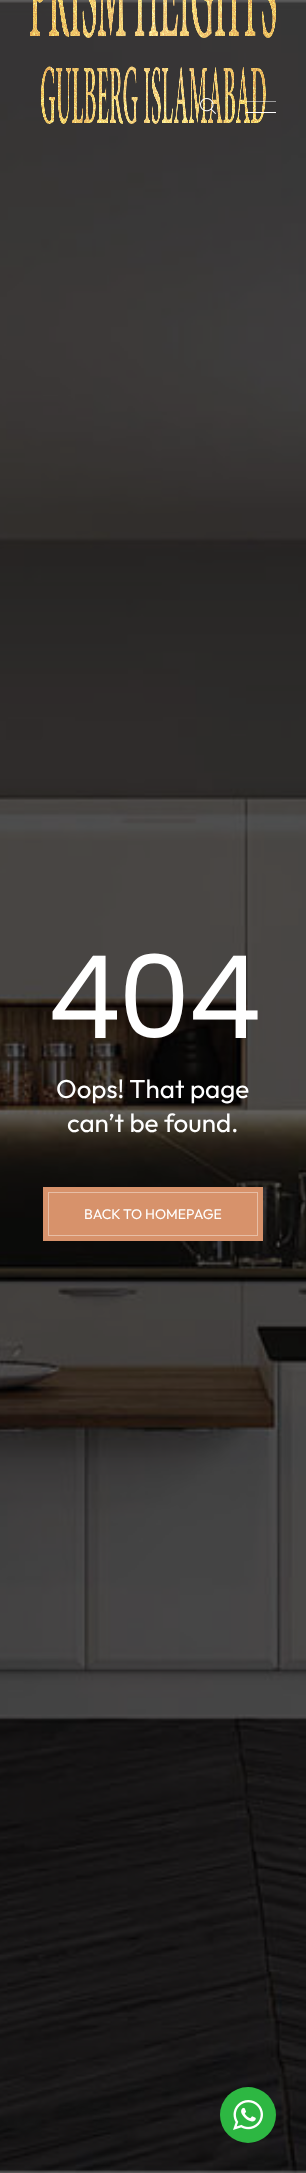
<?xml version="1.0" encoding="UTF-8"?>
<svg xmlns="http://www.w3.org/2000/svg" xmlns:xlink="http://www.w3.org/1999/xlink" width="306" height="2173">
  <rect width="100%" height="100%" fill="#ffffff" />
  <image x="0" y="0" width="306" height="2173" xlink:href="image3.png" />
  <image x="30" y="0" width="246" height="124" xlink:href="image1.png" />
  <image x="200" y="98" width="16" height="16" xlink:href="image2.png" />
  <path d="M 246 101 h 30 v 0.5 h -30 z m 0 11 h 30 v 1 h -30 z" fill="#ffffff" />
  <rect x="43" y="1187" width="220" height="54" fill="#d7926b" />
  <rect x="48.5" y="1192.5" width="209" height="43" fill="none" stroke="#e7bea6" />
  <circle cx="248" cy="2115" r="28" fill="#2db742" />
  <image x="233" y="2100" width="30" height="30" xlink:href="image4.png" />
  <text x="48" y="1038" style="font-family: Poppins; font-size: 115px; letter-spacing: -2px; fill: #ffffff">404</text>
  <text x="56" y="1098" style="font-family: Outfit; font-size: 26px; fill: #ffffff">Oops! That page</text>
  <text x="67" y="1132" style="font-family: Outfit; font-size: 26px; fill: #ffffff">can’t be found.</text>
  <text x="84" y="1219" style="font-family: Outfit; font-size: 14px; fill: #ffffff">BACK TO HOMEPAGE</text>
</svg>
